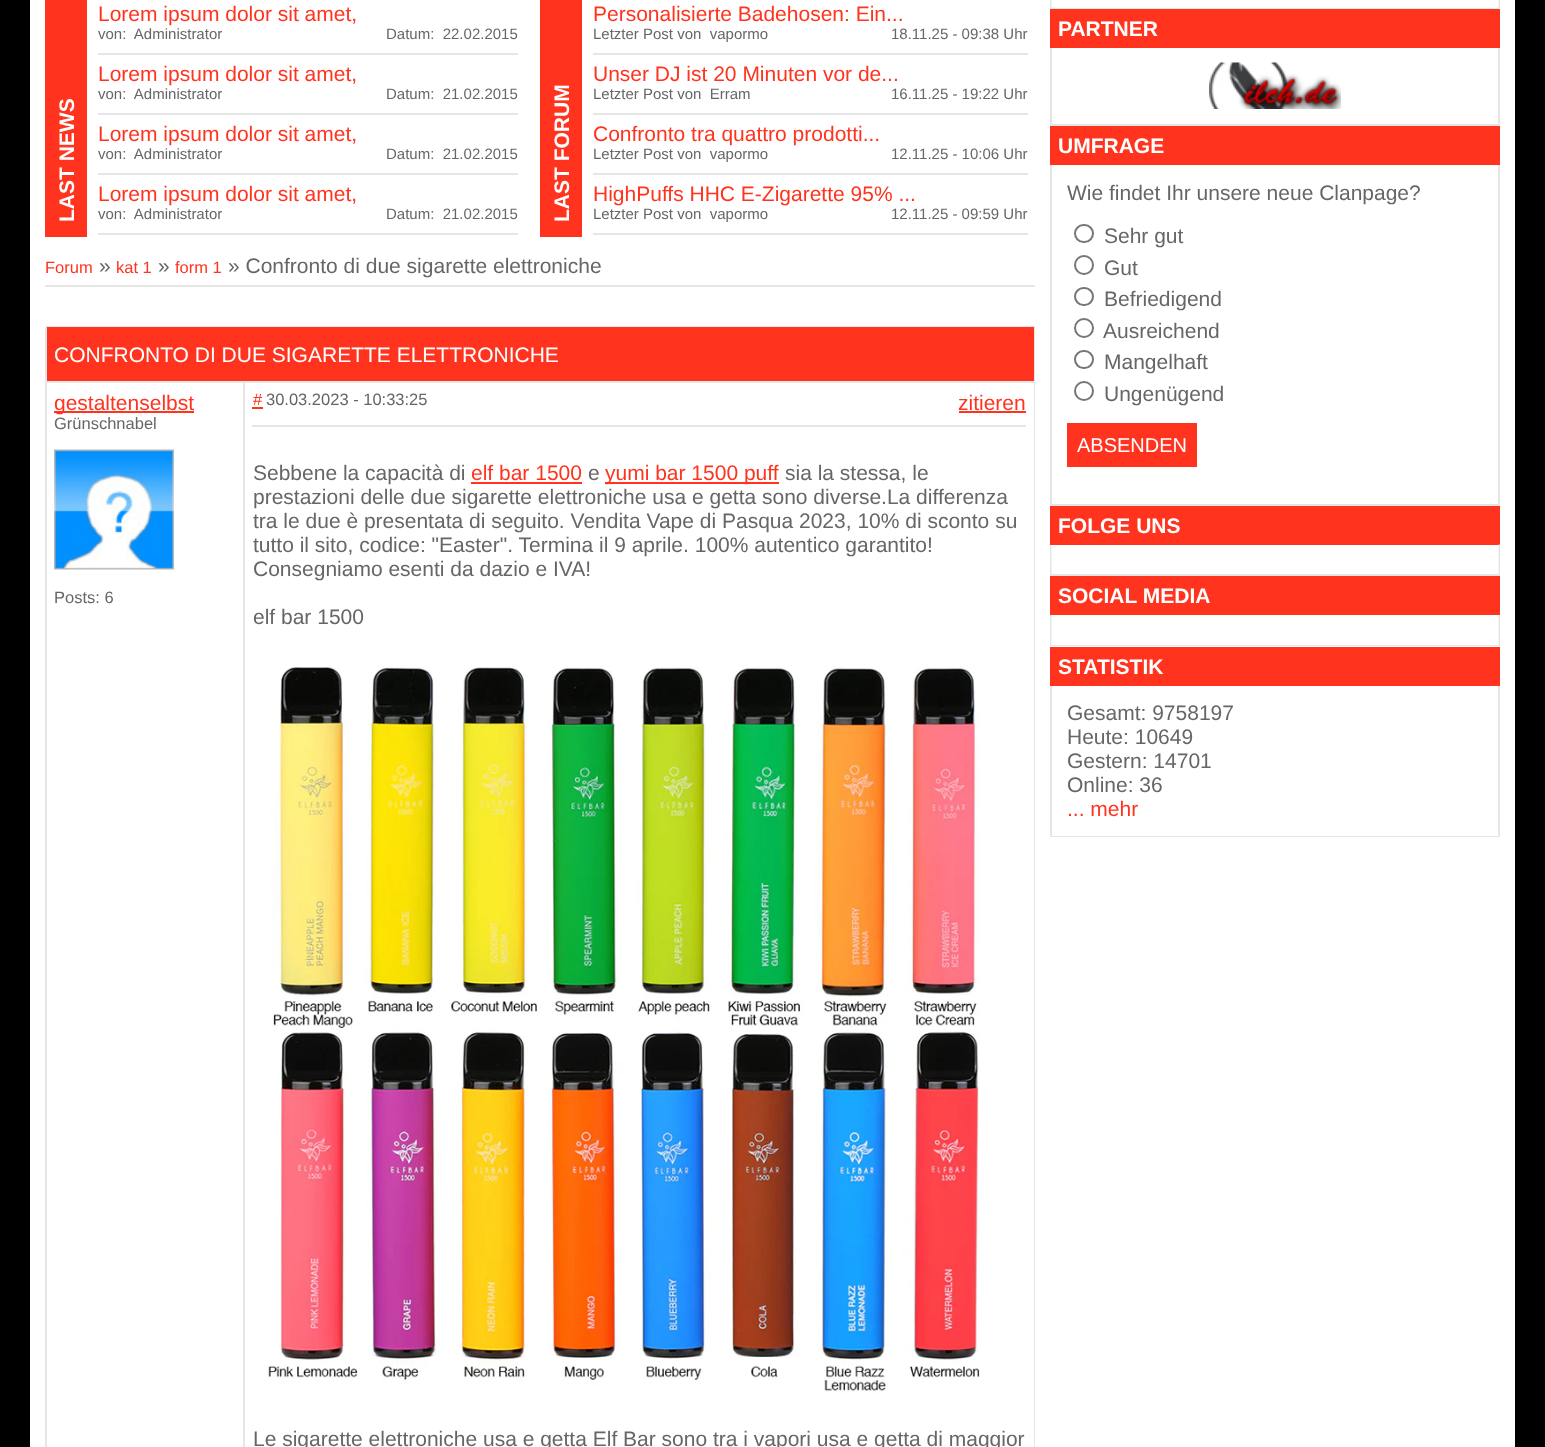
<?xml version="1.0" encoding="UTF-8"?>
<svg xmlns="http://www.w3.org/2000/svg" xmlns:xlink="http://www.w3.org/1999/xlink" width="1545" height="1447">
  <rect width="100%" height="100%" fill="#000000" />
  <rect x="30" width="1485" height="1447" fill="#ffffff" />
  <rect x="45" width="42" height="237" fill="#ff331e" />
  <rect x="98" y="53" width="420" height="2" fill="#e6e6e6" />
  <rect x="98" y="113" width="420" height="2" fill="#e6e6e6" />
  <rect x="98" y="173" width="420" height="2" fill="#e6e6e6" />
  <rect x="98" y="233" width="420" height="2" fill="#e6e6e6" />
  <rect x="540" width="42" height="237" fill="#ff331e" />
  <rect x="593" y="53" width="435" height="2" fill="#e6e6e6" />
  <rect x="593" y="113" width="435" height="2" fill="#e6e6e6" />
  <rect x="593" y="173" width="435" height="2" fill="#e6e6e6" />
  <rect x="593" y="233" width="435" height="2" fill="#e6e6e6" />
  <rect x="45" y="285" width="990" height="2" fill="#e6e6e6" />
  <rect x="45" y="326" width="990" height="1121" fill="#e6e6e6" />
  <rect x="47" y="327" width="987" height="54" fill="#ff331e" />
  <rect x="47" y="383" width="196" height="1064" fill="#ffffff" />
  <rect x="54" y="411" width="140" height="2" fill="#ff331e" />
  <image x="54" y="449" width="120" height="121" xlink:href="image1.png" />
  <rect x="245" y="383" width="789" height="1064" fill="#ffffff" />
  <rect x="252" y="407" width="11" height="2" fill="#ff331e" />
  <rect x="959" y="411" width="67" height="2" fill="#ff331e" />
  <rect x="252" y="425" width="774" height="2" fill="#e6e6e6" />
  <rect x="471" y="482" width="111" height="2" fill="#ff331e" />
  <rect x="605" y="482" width="174" height="2" fill="#ff331e" />
  <image x="267" y="666" width="713" height="727" xlink:href="image2.png" />
  <path d="M 1500 -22.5 v 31.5 l -1.5 -1.5 v -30 z" fill="#e6e6e6" />
  <path d="M 1500 9 h -450 l 2 -1 h 446 z" fill="#e6e6e6" />
  <path d="M 1050 9 v -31.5 h 1.5 v 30 z" fill="#000000" fill-opacity="0.1" />
  <rect x="1050" y="9" width="450" height="39" fill="#ff331e" />
  <path d="M 1500 48 v 78 l -2 -2 v -76 z" fill="#e6e6e6" />
  <path d="M 1500 126 h -450 l 2 -2 h 446 z" fill="#000000" fill-opacity="0.1" />
  <path d="M 1050 126 v -78 h 2 v 76 z" fill="#000000" fill-opacity="0.1" />
  <image x="1209" y="62" width="132" height="47" xlink:href="image3.png" />
  <rect x="1050" y="126" width="450" height="39" fill="#ff331e" />
  <path d="M 1500 165 v 341 l -2 -2 v -339 z" fill="#e6e6e6" />
  <path d="M 1500 506 h -450 l 2 -2 h 446 z" fill="#000000" fill-opacity="0.1" />
  <path d="M 1050 506 v -341 h 2 v 339 z" fill="#000000" fill-opacity="0.1" />
  <rect x="1075" y="225" width="18" height="17" rx="8.5" fill="none" stroke="#767676" stroke-width="2" />
  <circle cx="1084" cy="265" r="9" fill="none" stroke="#767676" stroke-width="2" />
  <rect x="1075" y="288" width="18" height="17" rx="8.5" fill="none" stroke="#767676" stroke-width="2" />
  <circle cx="1084" cy="328" r="9" fill="none" stroke="#767676" stroke-width="2" />
  <rect x="1075" y="351" width="18" height="17" rx="8.5" fill="none" stroke="#767676" stroke-width="2" />
  <circle cx="1084" cy="391" r="9" fill="none" stroke="#767676" stroke-width="2" />
  <rect x="1067" y="423" width="130" height="44" fill="#ff331e" />
  <rect x="1050" y="506" width="450" height="39" fill="#ff331e" />
  <path d="M 1500 544.5 v 31.5 l -1.5 -1.5 v -30 z" fill="#e6e6e6" />
  <path d="M 1500 576 h -450 l 2 -2 h 446 z" fill="#000000" fill-opacity="0.1" />
  <path d="M 1050 576 v -31.5 h 1.5 v 30 z" fill="#000000" fill-opacity="0.1" />
  <rect x="1050" y="576" width="450" height="39" fill="#ff331e" />
  <path d="M 1500 615 v 31.5 l -1.5 -1.5 v -30 z" fill="#e6e6e6" />
  <path d="M 1500 646 h -450 l 2 -1 h 446 z" fill="#000000" fill-opacity="0.1" />
  <path d="M 1050 646.5 v -31.5 h 1.5 v 30 z" fill="#000000" fill-opacity="0.1" />
  <rect x="1050" y="647" width="450" height="39" fill="#ff331e" />
  <path d="M 1500 686 v 151 l -2 -1 v -150 z" fill="#e6e6e6" />
  <path d="M 1500 837 h -450 l 2 -1 h 446 z" fill="#000000" fill-opacity="0.1" />
  <path d="M 1050 837 v -151 h 2 v 150 z" fill="#000000" fill-opacity="0.1" />
  <text x="74" y="222" transform="rotate(-90 74 222)" style="font-family: Liberation Sans; font-size: 21px; font-weight: bold; fill: #ffffff">LAST NEWS</text>
  <text x="98" y="21" style="font-family: Liberation Sans; font-size: 21px; fill: #ff331e">Lorem ipsum dolor sit amet,</text>
  <text x="98" y="39" style="font-family: Liberation Sans; font-size: 15px; fill: #666666" xml:space="preserve">von:  Administrator</text>
  <text x="386" y="39" style="font-family: Liberation Sans; font-size: 15px; fill: #666666" xml:space="preserve">Datum:  22.02.2015</text>
  <text x="98" y="81" style="font-family: Liberation Sans; font-size: 21px; fill: #ff331e">Lorem ipsum dolor sit amet,</text>
  <text x="98" y="99" style="font-family: Liberation Sans; font-size: 15px; fill: #666666" xml:space="preserve">von:  Administrator</text>
  <text x="386" y="99" style="font-family: Liberation Sans; font-size: 15px; fill: #666666" xml:space="preserve">Datum:  21.02.2015</text>
  <text x="98" y="141" style="font-family: Liberation Sans; font-size: 21px; fill: #ff331e">Lorem ipsum dolor sit amet,</text>
  <text x="98" y="159" style="font-family: Liberation Sans; font-size: 15px; fill: #666666" xml:space="preserve">von:  Administrator</text>
  <text x="386" y="159" style="font-family: Liberation Sans; font-size: 15px; fill: #666666" xml:space="preserve">Datum:  21.02.2015</text>
  <text x="98" y="201" style="font-family: Liberation Sans; font-size: 21px; fill: #ff331e">Lorem ipsum dolor sit amet,</text>
  <text x="98" y="219" style="font-family: Liberation Sans; font-size: 15px; fill: #666666" xml:space="preserve">von:  Administrator</text>
  <text x="386" y="219" style="font-family: Liberation Sans; font-size: 15px; fill: #666666" xml:space="preserve">Datum:  21.02.2015</text>
  <text x="569" y="222" transform="rotate(-90 569 222)" style="font-family: Liberation Sans; font-size: 21px; font-weight: bold; fill: #ffffff">LAST FORUM</text>
  <text x="593" y="21" style="font-family: Liberation Sans; font-size: 21px; fill: #ff331e">Personalisierte Badehosen: Ein...</text>
  <text x="593" y="39" style="font-family: Liberation Sans; font-size: 15px; fill: #666666" xml:space="preserve">Letzter Post von  vapormo</text>
  <text x="891" y="39" style="font-family: Liberation Sans; font-size: 15px; fill: #666666">18.11.25 - 09:38 Uhr</text>
  <text x="593" y="81" style="font-family: Liberation Sans; font-size: 21px; fill: #ff331e">Unser DJ ist 20 Minuten vor de...</text>
  <text x="593" y="99" style="font-family: Liberation Sans; font-size: 15px; fill: #666666" xml:space="preserve">Letzter Post von  Erram</text>
  <text x="891" y="99" style="font-family: Liberation Sans; font-size: 15px; fill: #666666">16.11.25 - 19:22 Uhr</text>
  <text x="593" y="141" style="font-family: Liberation Sans; font-size: 21px; fill: #ff331e">Confronto tra quattro prodotti...</text>
  <text x="593" y="159" style="font-family: Liberation Sans; font-size: 15px; fill: #666666" xml:space="preserve">Letzter Post von  vapormo</text>
  <text x="891" y="159" style="font-family: Liberation Sans; font-size: 15px; fill: #666666">12.11.25 - 10:06 Uhr</text>
  <text x="593" y="201" style="font-family: Liberation Sans; font-size: 21px; fill: #ff331e">HighPuffs HHC E-Zigarette 95% ...</text>
  <text x="593" y="219" style="font-family: Liberation Sans; font-size: 15px; fill: #666666" xml:space="preserve">Letzter Post von  vapormo</text>
  <text x="891" y="219" style="font-family: Liberation Sans; font-size: 15px; fill: #666666">12.11.25 - 09:59 Uhr</text>
  <text x="45" y="273" style="font-family: Liberation Sans; font-size: 16.5px; fill: #ff331e">Forum</text>
  <text x="99" y="273" style="font-family: Liberation Sans; font-size: 21px; fill: #666666">»</text>
  <text x="116" y="273" style="font-family: Liberation Sans; font-size: 16.5px; fill: #ff331e">kat 1</text>
  <text x="158" y="273" style="font-family: Liberation Sans; font-size: 21px; fill: #666666">»</text>
  <text x="175" y="273" style="font-family: Liberation Sans; font-size: 16.5px; fill: #ff331e">form 1</text>
  <text x="228" y="273" style="font-family: Liberation Sans; font-size: 21px; fill: #666666">» Confronto di due sigarette elettroniche</text>
  <text x="54" y="362" style="font-family: Liberation Sans; font-size: 21px; fill: #ffffff">CONFRONTO DI DUE SIGARETTE ELETTRONICHE</text>
  <text x="54" y="410" style="font-family: Liberation Sans; font-size: 21px; fill: #ff331e">gestaltenselbst</text>
  <text x="54" y="429" style="font-family: Liberation Sans; font-size: 16.5px; fill: #666666">Grünschnabel</text>
  <text x="54" y="603" style="font-family: Liberation Sans; font-size: 16.5px; fill: #666666">Posts: 6</text>
  <text x="253" y="405" style="font-family: Liberation Sans; font-size: 16.5px; fill: #ff331e">#</text>
  <text x="266" y="405" style="font-family: Liberation Sans; font-size: 16.5px; fill: #666666">30.03.2023 - 10:33:25</text>
  <text x="958" y="410" style="font-family: Liberation Sans; font-size: 21px; fill: #ff331e">zitieren</text>
  <text x="253" y="480" style="font-family: Liberation Sans; font-size: 21px; fill: #666666">Sebbene la capacità di</text>
  <text x="471" y="480" style="font-family: Liberation Sans; font-size: 21px; fill: #ff331e">elf bar 1500</text>
  <text x="588" y="480" style="font-family: Liberation Sans; font-size: 21px; fill: #666666">e</text>
  <text x="605" y="480" style="font-family: Liberation Sans; font-size: 21px; fill: #ff331e">yumi bar 1500 puff</text>
  <text x="785" y="480" style="font-family: Liberation Sans; font-size: 21px; fill: #666666">sia la stessa, le</text>
  <text x="253" y="504" style="font-family: Liberation Sans; font-size: 21px; fill: #666666">prestazioni delle due sigarette elettroniche usa e getta sono diverse.La differenza</text>
  <text x="253" y="528" style="font-family: Liberation Sans; font-size: 21px; fill: #666666">tra le due è presentata di seguito. Vendita Vape di Pasqua 2023, 10% di sconto su</text>
  <text x="253" y="552" style="font-family: Liberation Sans; font-size: 21px; fill: #666666">tutto il sito, codice: "Easter". Termina il 9 aprile. 100% autentico garantito!</text>
  <text x="253" y="576" style="font-family: Liberation Sans; font-size: 21px; fill: #666666">Consegniamo esenti da dazio e IVA!</text>
  <text x="253" y="624" style="font-family: Liberation Sans; font-size: 21px; fill: #666666">elf bar 1500</text>
  <text x="253" y="1446" style="font-family: Liberation Sans; font-size: 21px; fill: #666666">Le sigarette elettroniche usa e getta Elf Bar sono tra i vapori usa e getta di maggior</text>
  <text x="1058" y="36" style="font-family: Liberation Sans; font-size: 21px; font-weight: bold; fill: #ffffff">PARTNER</text>
  <text x="1058" y="153" style="font-family: Liberation Sans; font-size: 21px; font-weight: bold; fill: #ffffff">UMFRAGE</text>
  <text x="1067" y="200" style="font-family: Liberation Sans; font-size: 21px; fill: #666666">Wie findet Ihr unsere neue Clanpage?</text>
  <text x="1104" y="243" style="font-family: Liberation Sans; font-size: 21px; fill: #666666">Sehr gut</text>
  <text x="1104" y="275" style="font-family: Liberation Sans; font-size: 21px; fill: #666666">Gut</text>
  <text x="1104" y="306" style="font-family: Liberation Sans; font-size: 21px; fill: #666666">Befriedigend</text>
  <text x="1103" y="338" style="font-family: Liberation Sans; font-size: 21px; fill: #666666">Ausreichend</text>
  <text x="1104" y="369" style="font-family: Liberation Sans; font-size: 21px; fill: #666666">Mangelhaft</text>
  <text x="1104" y="401" style="font-family: Liberation Sans; font-size: 21px; fill: #666666">Ungenügend</text>
  <text x="1077" y="452" style="font-family: Liberation Sans; font-size: 20px; fill: #ffffff">ABSENDEN</text>
  <text x="1058" y="533" style="font-family: Liberation Sans; font-size: 21px; font-weight: bold; fill: #ffffff">FOLGE UNS</text>
  <text x="1058" y="603" style="font-family: Liberation Sans; font-size: 21px; font-weight: bold; fill: #ffffff">SOCIAL MEDIA</text>
  <text x="1058" y="674" style="font-family: Liberation Sans; font-size: 21px; font-weight: bold; fill: #ffffff">STATISTIK</text>
  <text x="1067" y="720" style="font-family: Liberation Sans; font-size: 21px; fill: #666666">Gesamt: 9758197</text>
  <text x="1067" y="744" style="font-family: Liberation Sans; font-size: 21px; fill: #666666">Heute: 10649</text>
  <text x="1067" y="768" style="font-family: Liberation Sans; font-size: 21px; fill: #666666">Gestern: 14701</text>
  <text x="1067" y="792" style="font-family: Liberation Sans; font-size: 21px; fill: #666666">Online: 36</text>
  <text x="1067" y="816" style="font-family: Liberation Sans; font-size: 21px; fill: #ff331e">... mehr</text>
</svg>
